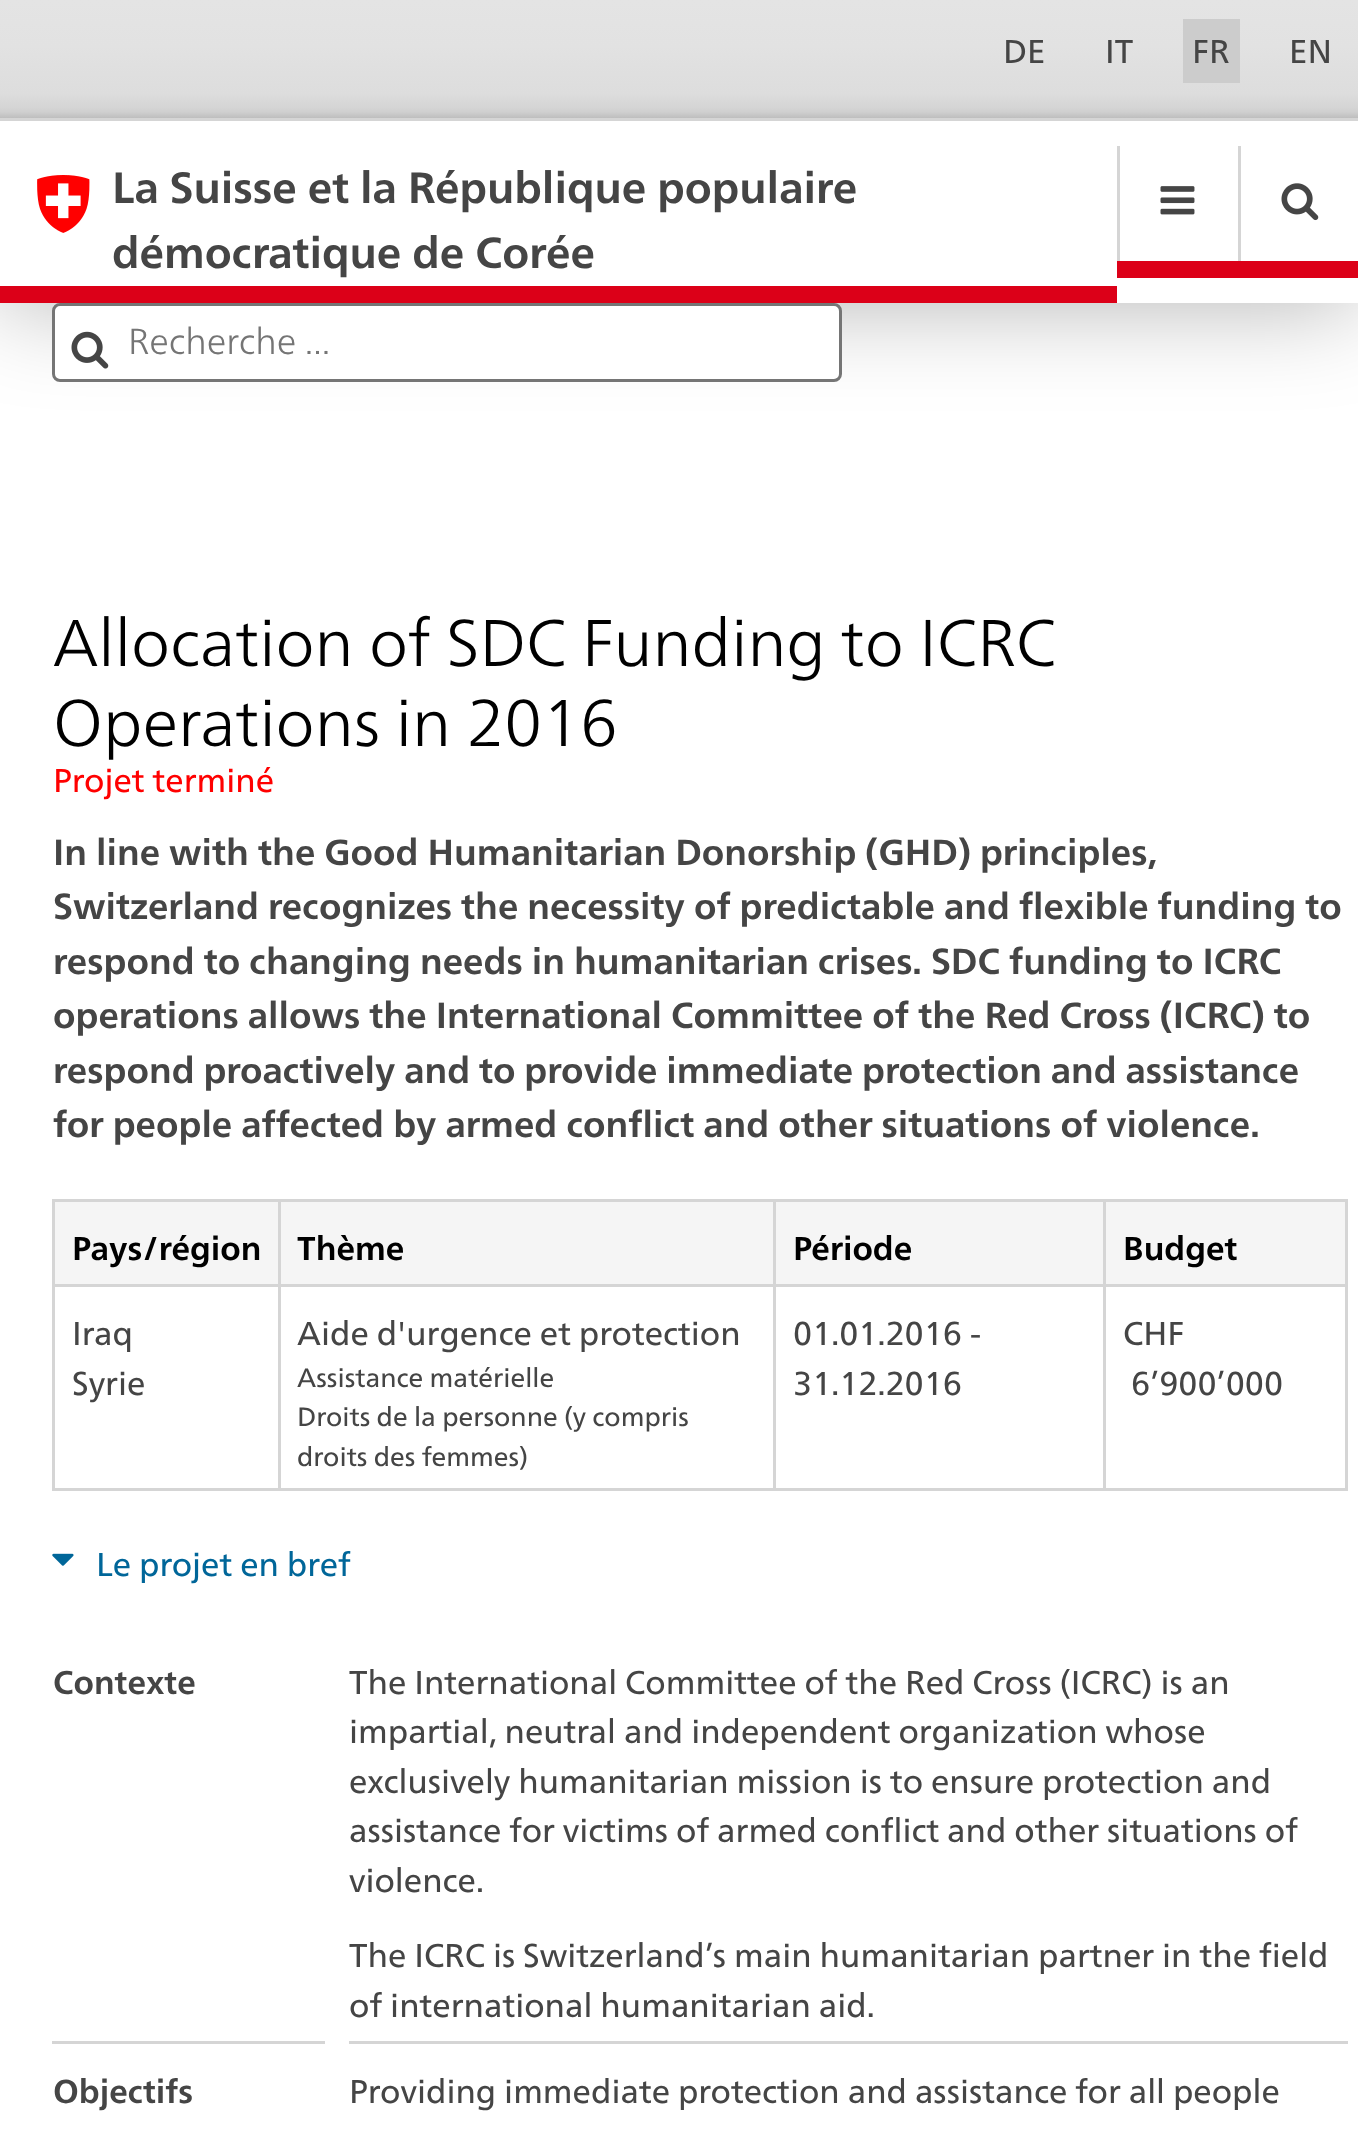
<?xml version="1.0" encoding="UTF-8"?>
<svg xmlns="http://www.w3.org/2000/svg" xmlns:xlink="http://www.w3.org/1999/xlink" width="1358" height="2132">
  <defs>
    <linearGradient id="g1" gradientUnits="userSpaceOnUse" x1="679" y1="0" x2="679" y2="118"><stop offset="0" stop-color="#e4e4e4" /><stop offset="0.39" stop-color="#e2e2e2" /><stop offset="0.79" stop-color="#dddddd" /><stop offset="0.91" stop-color="#d5d5d5" /><stop offset="0.95" stop-color="#cfcfcf" /><stop offset="1" stop-color="#bebebe" /></linearGradient>
  </defs>
  <rect width="100%" height="100%" fill="#ffffff" />
  <rect y="121" width="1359" height="182" fill="#000000" fill-opacity="0.3" filter="blur(49.5px)" />
  <rect width="1358" height="118" fill="url(#g1)" />
  <rect y="118" width="1358" height="3" fill="#d5d5d5" />
  <rect x="1183" y="19" width="57" height="64" fill="#cccccc" />
  <rect y="121" width="1358" height="182" fill="#ffffff" />
  <rect x="1117" y="261" width="241" height="17" fill="#dc0018" />
  <rect x="1117" y="146" width="3" height="115" fill="#d5d5d5" />
  <image x="1160" y="186" width="35" height="29" xlink:href="image1.png" />
  <rect y="286" width="1117" height="17" fill="#dc0018" />
  <image x="37" y="175" width="53" height="58" xlink:href="image2.png" />
  <rect x="1238" y="146" width="3" height="115" fill="#d5d5d5" />
  <image x="1281" y="183" width="38" height="38" xlink:href="image3.png" />
  <rect x="53.5" y="304.5" width="787" height="76" rx="6.5" fill="#ffffff" stroke="#757575" stroke-width="3" />
  <image x="71" y="331" width="38" height="38" xlink:href="image4.png" />
  <rect x="55" y="1202" width="223" height="82" fill="#f5f5f5" />
  <rect x="1103" y="1199" width="245" height="3" fill="#d5d5d5" />
  <rect x="1345" y="1284" width="3" height="207" fill="#d5d5d5" />
  <rect x="1345" y="1199" width="3" height="88" fill="#d5d5d5" />
  <rect x="1103" y="1488" width="245" height="3" fill="#d5d5d5" />
  <rect x="1103" y="1284" width="3" height="207" fill="#d5d5d5" />
  <rect x="1103" y="1284" width="245" height="3" fill="#d5d5d5" />
  <rect x="1103" y="1199" width="3" height="88" fill="#d5d5d5" />
  <rect x="773" y="1199" width="333" height="3" fill="#d5d5d5" />
  <rect x="773" y="1488" width="333" height="3" fill="#d5d5d5" />
  <rect x="773" y="1284" width="3" height="207" fill="#d5d5d5" />
  <rect x="773" y="1284" width="333" height="3" fill="#d5d5d5" />
  <rect x="773" y="1199" width="3" height="88" fill="#d5d5d5" />
  <rect x="278" y="1199" width="498" height="3" fill="#d5d5d5" />
  <rect x="278" y="1488" width="498" height="3" fill="#d5d5d5" />
  <rect x="278" y="1284" width="3" height="207" fill="#d5d5d5" />
  <rect x="278" y="1284" width="498" height="3" fill="#d5d5d5" />
  <rect x="278" y="1199" width="3" height="88" fill="#d5d5d5" />
  <rect x="52" y="1199" width="229" height="3" fill="#d5d5d5" />
  <rect x="52" y="1488" width="229" height="3" fill="#d5d5d5" />
  <rect x="52" y="1284" width="3" height="207" fill="#d5d5d5" />
  <rect x="52" y="1284" width="229" height="3" fill="#d5d5d5" />
  <rect x="52" y="1199" width="3" height="88" fill="#d5d5d5" />
  <rect x="281" y="1202" width="492" height="82" fill="#f5f5f5" />
  <rect x="776" y="1202" width="327" height="82" fill="#f5f5f5" />
  <rect x="1106" y="1202" width="239" height="82" fill="#f5f5f5" />
  <image x="52" y="1553" width="22" height="13" xlink:href="image5.png" />
  <rect x="52" y="2041" width="273" height="3" fill="#d5d5d5" />
  <rect x="349" y="2041" width="999" height="3" fill="#d5d5d5" />
  <text x="1003" y="63" style="font-family: 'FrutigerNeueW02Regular'; font-size: 33px; fill: #454545">DE</text>
  <text x="1105" y="63" style="font-family: 'FrutigerNeueW02Regular'; font-size: 33px; fill: #454545">IT</text>
  <text x="1192" y="63" style="font-family: 'FrutigerNeueW02Regular'; font-size: 33px; fill: #454545">FR</text>
  <text x="1289" y="63" style="font-family: 'FrutigerNeueW02Regular'; font-size: 33px; fill: #454545">EN</text>
  <text x="112" y="203" style="font-family: 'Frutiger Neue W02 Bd'; font-size: 43.6px; font-weight: bold; fill: #454545">La Suisse et la République populaire</text>
  <text x="112" y="268" style="font-family: 'Frutiger Neue W02 Bd'; font-size: 43.6px; font-weight: bold; fill: #454545">démocratique de Corée</text>
  <text x="128" y="354" style="font-family: 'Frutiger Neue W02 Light'; font-size: 36.3px; font-weight: 300; fill: #757575">Recherche ...</text>
  <text x="53" y="666" style="font-family: 'Frutiger Neue W02 Light'; font-size: 66px; font-weight: 300; fill: #000000">Allocation of SDC Funding to ICRC</text>
  <text x="53" y="746" style="font-family: 'Frutiger Neue W02 Light'; font-size: 66px; font-weight: 300; fill: #000000">Operations in 2016</text>
  <text x="53" y="792" style="font-family: 'FrutigerNeueW02Regular'; font-size: 33px; fill: #ff0000">Projet terminé</text>
  <text x="53" y="865" word-spacing="-0.1" style="font-family: 'Frutiger Neue W02 Bd'; font-size: 36.3px; font-weight: bold; fill: #454545">In line with the Good Humanitarian Donorship (GHD) principles,</text>
  <text x="53" y="919" word-spacing="-0.1" style="font-family: 'Frutiger Neue W02 Bd'; font-size: 36.3px; font-weight: bold; fill: #454545">Switzerland recognizes the necessity of predictable and flexible funding to</text>
  <text x="53" y="974" style="font-family: 'Frutiger Neue W02 Bd'; font-size: 36.3px; font-weight: bold; fill: #454545">respond to changing needs in humanitarian crises. SDC funding to ICRC</text>
  <text x="53" y="1028" style="font-family: 'Frutiger Neue W02 Bd'; font-size: 36.3px; font-weight: bold; fill: #454545">operations allows the International Committee of the Red Cross (ICRC) to</text>
  <text x="53" y="1083" word-spacing="-0.25" style="font-family: 'Frutiger Neue W02 Bd'; font-size: 36.3px; font-weight: bold; fill: #454545">respond proactively and to provide immediate protection and assistance</text>
  <text x="53" y="1137" style="font-family: 'Frutiger Neue W02 Bd'; font-size: 36.3px; font-weight: bold; fill: #454545">for people affected by armed conflict and other situations of violence.</text>
  <text x="72" y="1260" style="font-family: 'Frutiger Neue W02 Bd'; font-size: 33px; font-weight: bold; fill: #000000">Pays/région</text>
  <text x="297" y="1260" style="font-family: 'Frutiger Neue W02 Bd'; font-size: 33px; font-weight: bold; fill: #000000">Thème</text>
  <text x="793" y="1260" style="font-family: 'Frutiger Neue W02 Bd'; font-size: 33px; font-weight: bold; fill: #000000">Période</text>
  <text x="1123" y="1260" style="font-family: 'Frutiger Neue W02 Bd'; font-size: 33px; font-weight: bold; fill: #000000">Budget</text>
  <text x="72" y="1345" style="font-family: 'FrutigerNeueW02Regular'; font-size: 33px; fill: #454545">Iraq</text>
  <text x="72" y="1395" style="font-family: 'FrutigerNeueW02Regular'; font-size: 33px; fill: #454545">Syrie</text>
  <text x="297" y="1345" style="font-family: 'FrutigerNeueW02Regular'; font-size: 33px; fill: #454545">Aide d'urgence et protection</text>
  <text x="297" y="1387" style="font-family: 'FrutigerNeueW02Regular'; font-size: 26.4px; fill: #454545">Assistance matérielle</text>
  <text x="297" y="1426" style="font-family: 'FrutigerNeueW02Regular'; font-size: 26.4px; fill: #454545">Droits de la personne (y compris</text>
  <text x="297" y="1466" style="font-family: 'FrutigerNeueW02Regular'; font-size: 26.4px; fill: #454545">droits des femmes)</text>
  <text x="793" y="1345" style="font-family: 'FrutigerNeueW02Regular'; font-size: 33px; fill: #454545">01.01.2016 -</text>
  <text x="793" y="1395" style="font-family: 'FrutigerNeueW02Regular'; font-size: 33px; fill: #454545">31.12.2016</text>
  <text x="1123" y="1345" style="font-family: 'FrutigerNeueW02Regular'; font-size: 33px; fill: #454545">CHF</text>
  <text x="1131" y="1395" style="font-family: 'FrutigerNeueW02Regular'; font-size: 33px; fill: #454545">6’900’000</text>
  <text x="96" y="1576" style="font-family: 'FrutigerNeueW02Regular'; font-size: 33px; fill: #006699">Le projet en bref</text>
  <text x="53" y="1694" style="font-family: 'Frutiger Neue W02 Bd'; font-size: 33px; font-weight: bold; fill: #454545">Contexte</text>
  <text x="349" y="1694" style="font-family: 'FrutigerNeueW02Regular'; font-size: 33px; fill: #454545">The International Committee of the Red Cross (ICRC) is an</text>
  <text x="349" y="1743" style="font-family: 'FrutigerNeueW02Regular'; font-size: 33px; fill: #454545">impartial, neutral and independent organization whose</text>
  <text x="349" y="1793" style="font-family: 'FrutigerNeueW02Regular'; font-size: 33px; fill: #454545">exclusively humanitarian mission is to ensure protection and</text>
  <text x="349" y="1842" style="font-family: 'FrutigerNeueW02Regular'; font-size: 33px; fill: #454545">assistance for victims of armed conflict and other situations of</text>
  <text x="349" y="1892" style="font-family: 'FrutigerNeueW02Regular'; font-size: 33px; fill: #454545">violence.</text>
  <text x="349" y="1967" style="font-family: 'FrutigerNeueW02Regular'; font-size: 33px; fill: #454545">The ICRC is Switzerland’s main humanitarian partner in the field</text>
  <text x="349" y="2017" style="font-family: 'FrutigerNeueW02Regular'; font-size: 33px; fill: #454545">of international humanitarian aid.</text>
  <text x="53" y="2103" style="font-family: 'Frutiger Neue W02 Bd'; font-size: 33px; font-weight: bold; fill: #454545">Objectifs</text>
  <text x="349" y="2103" style="font-family: 'FrutigerNeueW02Regular'; font-size: 33px; fill: #454545">Providing immediate protection and assistance for all people</text>
</svg>
